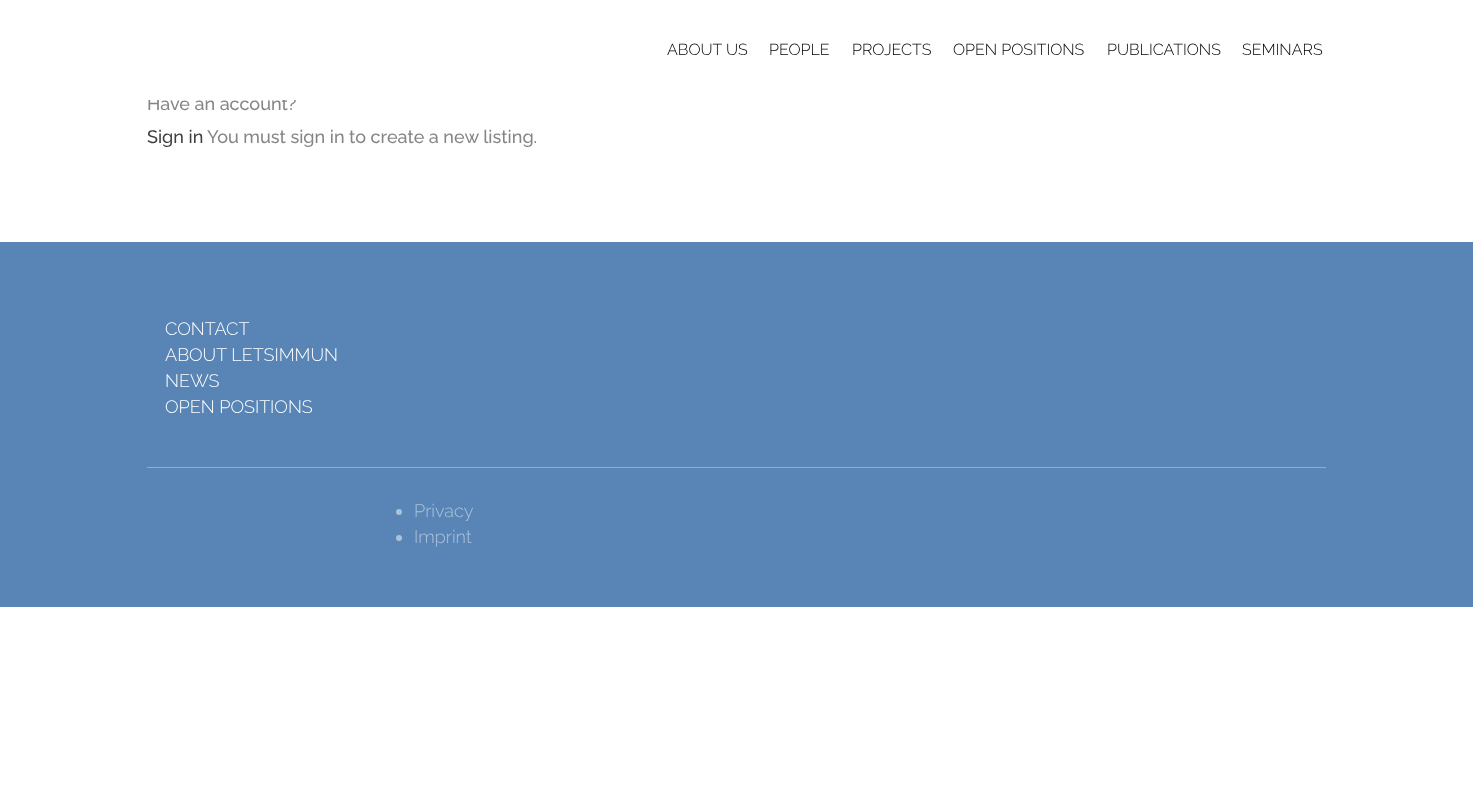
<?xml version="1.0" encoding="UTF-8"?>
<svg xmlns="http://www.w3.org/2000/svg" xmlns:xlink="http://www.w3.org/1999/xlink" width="1473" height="785">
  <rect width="100%" height="100%" fill="#ffffff" />
  <rect y="242" width="1473" height="365" fill="#5885b5" />
  <rect x="147" y="467" width="1179" height="1" fill="#8fadcd" />
  <circle cx="399" cy="512" r="3" fill="#acc2da" />
  <circle cx="399" cy="538" r="3" fill="#acc2da" />
  <text x="667" y="55" style="font-family: Raleway; font-size: 16px; font-weight: 300; fill: #000000">ABOUT US</text>
  <text x="769" y="55" style="font-family: Raleway; font-size: 16px; font-weight: 300; fill: #000000">PEOPLE</text>
  <text x="852" y="55" style="font-family: Raleway; font-size: 16px; font-weight: 300; fill: #000000">PROJECTS</text>
  <text x="953" y="55" style="font-family: Raleway; font-size: 16px; font-weight: 300; fill: #000000">OPEN POSITIONS</text>
  <text x="1107" y="55" style="font-family: Raleway; font-size: 16px; font-weight: 300; fill: #000000">PUBLICATIONS</text>
  <text x="1242" y="55" style="font-family: Raleway; font-size: 16px; font-weight: 300; fill: #000000">SEMINARS</text>
  <text x="147" y="110" style="font-family: Raleway; font-size: 18px; font-weight: 500; fill: #858585">Have an account?</text>
  <rect x="148" y="97" width="148" height="3" fill="#ffffff" />
  <text x="147" y="143" style="font-family: Raleway; font-size: 18px; font-weight: 500; fill: #3f3f3f">Sign in</text>
  <text x="207" y="143" style="font-family: Raleway; font-size: 18px; font-weight: 500; fill: #858585">You must sign in to create a new listing.</text>
  <text x="165" y="335" style="font-family: Raleway; font-size: 18px; font-weight: 300; fill: #ffffff">CONTACT</text>
  <text x="165" y="361" style="font-family: Raleway; font-size: 18px; font-weight: 300; fill: #ffffff">ABOUT LETSIMMUN</text>
  <text x="165" y="387" style="font-family: Raleway; font-size: 18px; font-weight: 300; fill: #ffffff">NEWS</text>
  <text x="165" y="413" style="font-family: Raleway; font-size: 18px; font-weight: 300; fill: #ffffff">OPEN POSITIONS</text>
  <text x="414" y="517" style="font-family: Raleway; font-size: 18px; font-weight: 300; fill: #acc2da">Privacy</text>
  <text x="414" y="543" style="font-family: Raleway; font-size: 18px; font-weight: 300; fill: #acc2da">Imprint</text>
</svg>
